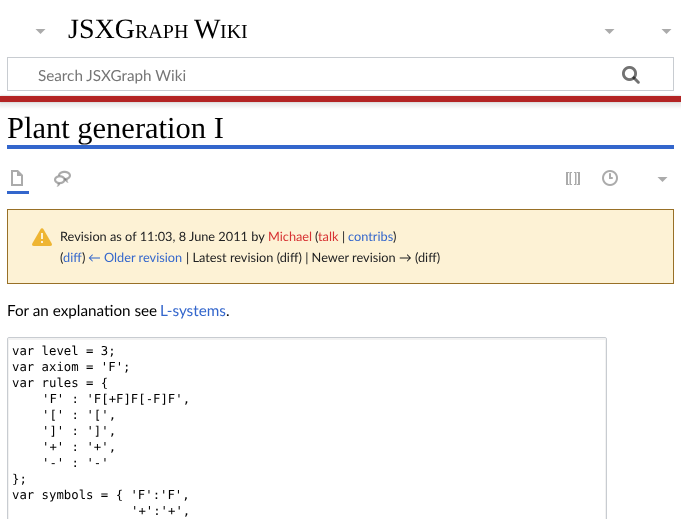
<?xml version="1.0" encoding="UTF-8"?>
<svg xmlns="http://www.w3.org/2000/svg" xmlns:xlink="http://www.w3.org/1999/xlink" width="681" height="519">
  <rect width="100%" height="100%" fill="#ffffff" />
  <path d="M 671.5 29 l -5 5 l -5 -5 z" fill="#ababab" />
  <rect x="7.5" y="57.5" width="666" height="33" fill="none" stroke="#c8ccd1" />
  <image x="622" y="66" width="18" height="18" xlink:href="image1.png" />
  <image x="622" y="66" width="18" height="18" xlink:href="image2.png" />
  <rect y="96" width="681" height="6" fill="#000000" fill-opacity="0.2" filter="blur(1px)" />
  <rect x="-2" y="97" width="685" height="10" fill="#000000" fill-opacity="0.07" filter="blur(1.5px)" />
  <rect y="96" width="681" height="6" fill="#b32424" />
  <path d="M 45.5 29 l -5 5 l -5 -5 z" fill="#ababab" />
  <path d="M 614.5 29 l -5 5 l -5 -5 z" fill="#ababab" />
  <rect x="7" y="145" width="667" height="4" fill="#3366cc" />
  <rect x="7" y="191" width="22" height="3" fill="#3366cc" />
  <image x="11" y="170" width="12" height="16" xlink:href="image3.png" />
  <image x="54" y="170" width="17" height="17" xlink:href="image4.png" />
  <image x="566" y="172" width="14" height="13" xlink:href="image5.png" />
  <image x="602" y="170" width="16" height="16" xlink:href="image6.png" />
  <path d="M 667.5 177 l -5 5 l -5 -5 z" fill="#ababab" />
  <rect x="7.5" y="209.5" width="666" height="74" fill="#fdf2d5" stroke="#987027" />
  <image x="32" y="228" width="20" height="18" xlink:href="image7.png" />
  <path d="M 9 340 h 596 v 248 l 1 -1 v -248 l -1 -1 h -596 l -1 1 v 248 l 1 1 z" fill="#f2f2f2" />
  <rect x="7.5" y="337.5" width="599" height="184" rx="1.5" fill="none" stroke="#c8ccd1" />
  <text x="68" y="38" style="font-family: Liberation Serif; font-size: 28px; fill: #000000">JSXG</text>
  <text x="135" y="38" style="font-family: Liberation Serif; font-size: 20px; fill: #000000">RAPH</text>
  <text x="194" y="38" style="font-family: Liberation Serif; font-size: 28px; fill: #000000">W</text>
  <text x="220" y="38" style="font-family: Liberation Serif; font-size: 20px; fill: #000000">IKI</text>
  <text x="38" y="81" style="font-family: Lato; font-size: 15.25px; fill: #757575">Search JSXGraph Wiki</text>
  <text x="7" y="138" style="font-family: Liberation Serif; font-size: 30.5px; fill: #000000">Plant generation I</text>
  <text x="60" y="241" style="font-family: Lato; font-size: 12.75px; fill: #202122">Revision as of 11:03, 8 June 2011 by</text>
  <text x="268" y="241" style="font-family: Lato; font-size: 12.75px; fill: #d73333">Michael</text>
  <text x="315" y="241" style="font-family: Lato; font-size: 12.75px; fill: #202122">(</text>
  <text x="318" y="241" style="font-family: Lato; font-size: 12.75px; fill: #d73333">talk</text>
  <text x="342" y="241" style="font-family: Lato; font-size: 12.75px; fill: #202122">|</text>
  <text x="348" y="241" style="font-family: Lato; font-size: 12.75px; fill: #3366cc">contribs</text>
  <text x="393" y="241" style="font-family: Lato; font-size: 12.75px; fill: #202122">)</text>
  <text x="60" y="262" style="font-family: Lato; font-size: 12.75px; fill: #202122">(</text>
  <text x="63" y="262" style="font-family: Lato; font-size: 12.75px; fill: #3366cc">diff</text>
  <text x="82" y="262" style="font-family: Lato; font-size: 12.75px; fill: #202122">)</text>
  <text x="88" y="262" style="font-family: Lato; font-size: 12.75px; fill: #3366cc">← Older revision</text>
  <text x="186" y="262" style="font-family: Lato; font-size: 12.75px; fill: #202122">| Latest revision (diff) | Newer revision → (diff)</text>
  <text x="7" y="316" style="font-family: Lato; font-size: 15.25px; fill: #000000">For an explanation see</text>
  <text x="160" y="316" style="font-family: Lato; font-size: 15.25px; fill: #3366cc">L-systems</text>
  <text x="226" y="316" style="font-family: Lato; font-size: 15.25px; fill: #000000">.</text>
  <text x="12" y="355" style="font-family: DejaVu Sans Mono; font-size: 12.3px; fill: #000000">var level = 3;</text>
  <text x="12" y="371" style="font-family: DejaVu Sans Mono; font-size: 12.3px; fill: #000000">var axiom = 'F';</text>
  <text x="12" y="387" style="font-family: DejaVu Sans Mono; font-size: 12.3px; fill: #000000">var rules = {</text>
  <text x="42" y="403" style="font-family: DejaVu Sans Mono; font-size: 12.3px; fill: #000000">'F' : 'F[+F]F[-F]F',</text>
  <text x="42" y="419" style="font-family: DejaVu Sans Mono; font-size: 12.3px; fill: #000000">'[' : '[',</text>
  <text x="42" y="435" style="font-family: DejaVu Sans Mono; font-size: 12.3px; fill: #000000">']' : ']',</text>
  <text x="42" y="451" style="font-family: DejaVu Sans Mono; font-size: 12.3px; fill: #000000">'+' : '+',</text>
  <text x="42" y="467" style="font-family: DejaVu Sans Mono; font-size: 12.3px; fill: #000000">'-' : '-'</text>
  <text x="12" y="483" style="font-family: DejaVu Sans Mono; font-size: 12.3px; fill: #000000">};</text>
  <text x="12" y="499" style="font-family: DejaVu Sans Mono; font-size: 12.3px; fill: #000000">var symbols = { 'F':'F',</text>
  <text x="131" y="515" style="font-family: DejaVu Sans Mono; font-size: 12.3px; fill: #000000">'+':'+',</text>
</svg>
